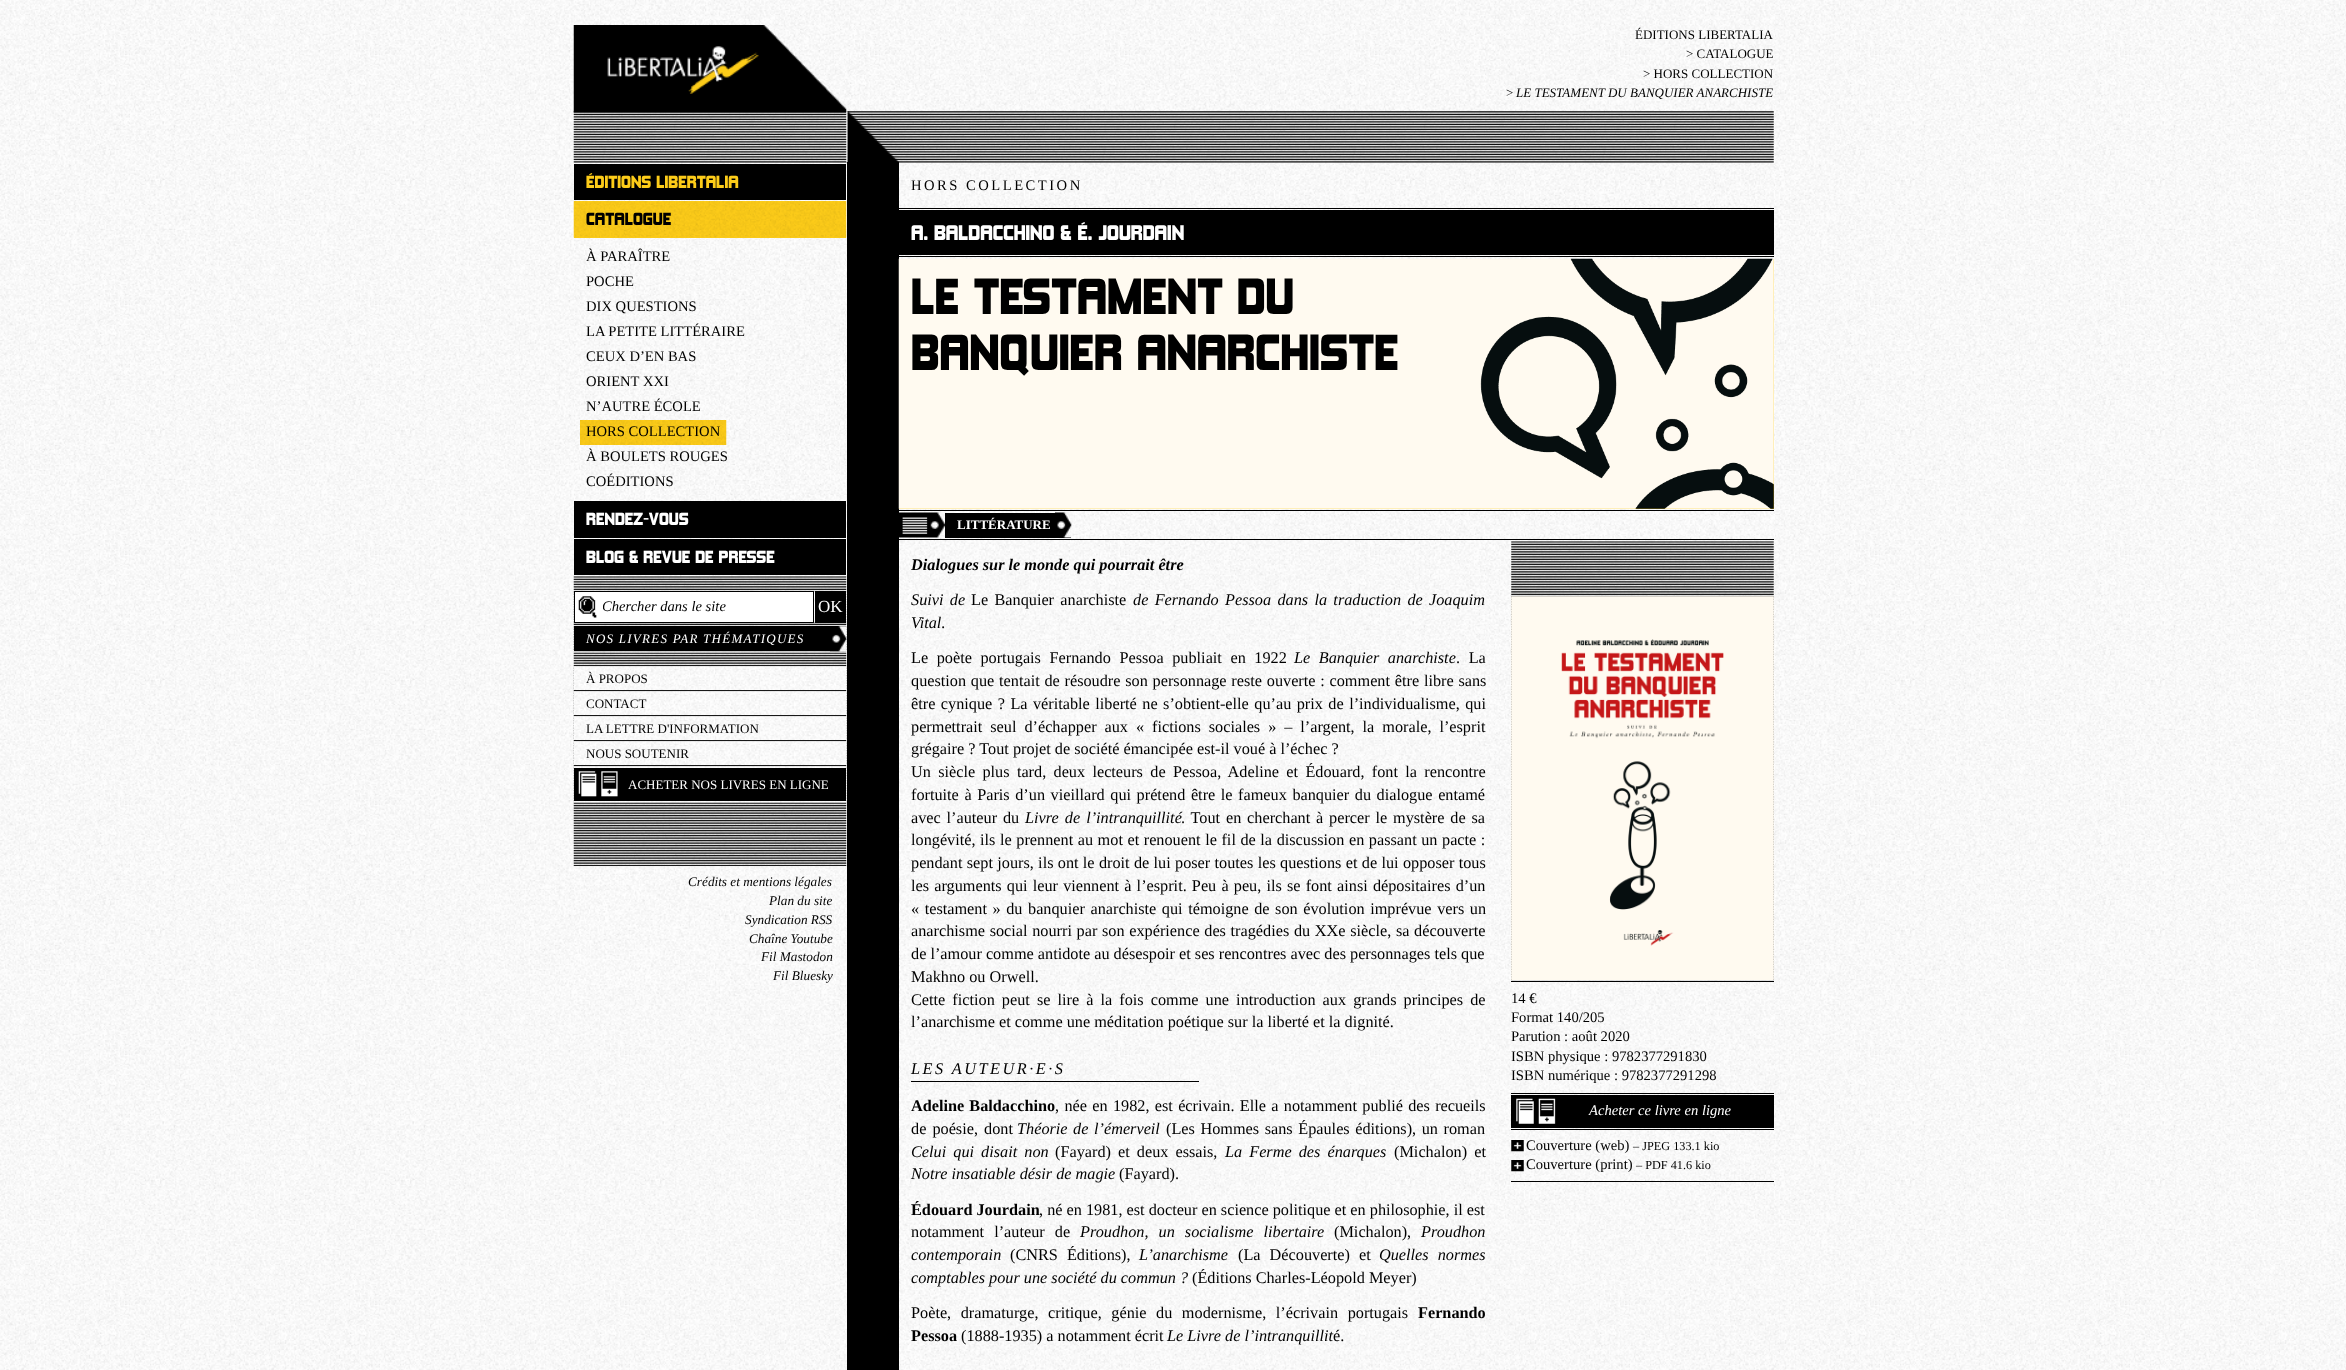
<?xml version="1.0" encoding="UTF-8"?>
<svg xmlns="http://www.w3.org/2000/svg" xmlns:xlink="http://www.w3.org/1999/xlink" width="2346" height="1370">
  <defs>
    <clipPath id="clip1"><rect x="603" y="593" width="210" height="28" /></clipPath>
  </defs>
  <rect width="100%" height="100%" fill="#ffffff" />
  <image x="0" y="0" width="2346" height="1370" xlink:href="image1.png" />
  <image x="573" y="111" width="1201" height="52" xlink:href="image2.png" />
  <image x="573" y="25" width="274" height="88" xlink:href="image3.png" />
  <image x="607" y="46" width="152" height="48" xlink:href="image4.png" />
  <image x="846" y="111" width="53" height="52" xlink:href="image5.png" />
  <rect x="574" y="164" width="272" height="36" fill="#000000" />
  <rect x="574" y="201" width="272" height="37" fill="#fdcc19" />
  <image x="573" y="201" width="274" height="37" xlink:href="image6.png" />
  <image x="574" y="239" width="272" height="262" xlink:href="image7.png" />
  <image x="580" y="420" width="147" height="25" xlink:href="image8.png" />
  <rect x="574" y="501" width="272" height="37" fill="#000000" />
  <rect x="574" y="539" width="272" height="36" fill="#000000" />
  <image x="573" y="576" width="274" height="76" xlink:href="image9.png" />
  <image x="573" y="591" width="274" height="32" xlink:href="image10.png" />
  <rect x="575" y="592" width="238" height="30" fill="#ffffff" />
  <image x="578" y="596" width="19" height="22" xlink:href="image11.png" />
  <rect x="574.5" y="591.5" width="239" height="31" fill="none" stroke="#000000" />
  <rect x="815" y="591" width="31" height="32" fill="#000000" />
  <rect x="574" y="626" width="272" height="25" fill="#000000" />
  <image x="830" y="626" width="17" height="26" xlink:href="image12.png" />
  <image x="573" y="652" width="274" height="215" xlink:href="image13.png" />
  <image x="573" y="666" width="274" height="24" xlink:href="image14.png" />
  <image x="573" y="691" width="274" height="24" xlink:href="image15.png" />
  <image x="573" y="716" width="274" height="24" xlink:href="image16.png" />
  <image x="573" y="741" width="274" height="24" xlink:href="image17.png" />
  <image x="573" y="766" width="274" height="37" xlink:href="image18.png" />
  <rect x="574" y="768" width="272" height="33" fill="#000000" />
  <image x="578" y="771" width="40" height="26" xlink:href="image19.png" />
  <image x="574" y="866" width="273" height="119" xlink:href="image20.png" />
  <rect x="847" y="162" width="52" height="1208" fill="#000000" />
  <rect x="899" y="208" width="875" height="1" fill="#000000" />
  <rect x="899" y="210" width="875" height="45" fill="#000000" />
  <rect x="899" y="259" width="875" height="250" fill="#fdcc19" />
  <image x="898" y="258" width="876" height="251" xlink:href="image21.png" />
  <rect x="899" y="256" width="875" height="1" fill="#000000" />
  <image x="899" y="512" width="46" height="26" xlink:href="image22.png" />
  <rect x="899" y="510" width="875" height="1" fill="#000000" />
  <rect x="899" y="539" width="875" height="1" fill="#000000" />
  <rect x="945" y="513" width="126" height="25" fill="#000000" />
  <image x="1055" y="512" width="17" height="26" xlink:href="image23.png" />
  <rect x="911" y="1081" width="288" height="1" fill="#000000" />
  <rect x="1511" y="1181" width="263" height="1" fill="#000000" />
  <image x="1511" y="541" width="263" height="440" xlink:href="image24.png" />
  <image x="1511" y="596" width="263" height="384" xlink:href="image25.png" />
  <rect x="1511" y="981" width="263" height="1" fill="#000000" />
  <rect x="1511" y="1093" width="263" height="1" fill="#000000" />
  <rect x="1511" y="1095" width="263" height="33" fill="#000000" />
  <image x="1516" y="1098" width="40" height="26" xlink:href="image26.png" />
  <rect x="1511" y="1129" width="263" height="1" fill="#000000" />
  <image x="1511" y="1140" width="13" height="12" xlink:href="image27.png" />
  <image x="1511" y="1160" width="13" height="12" xlink:href="image28.png" />
  <text x="1635" y="39" style="font-family: Liberation Serif; font-size: 13px; fill: #000000">ÉDITIONS LIBERTALIA</text>
  <text x="1686" y="58" style="font-family: Liberation Serif; font-size: 13px; fill: #000000">&gt; CATALOGUE</text>
  <text x="1643" y="78" style="font-family: Liberation Serif; font-size: 13px; fill: #000000">&gt; HORS COLLECTION</text>
  <text x="1506" y="97" style="font-family: Liberation Serif; font-size: 13px; fill: #000000">&gt;</text>
  <text x="1516" y="97" style="font-family: Liberation Serif; font-size: 13px; font-style: italic; fill: #000000">LE TESTAMENT DU BANQUIER ANARCHISTE</text>
  <text x="586" y="188" style="font-family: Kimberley; font-size: 16.25px; fill: #fdcc19">ÉDITIONS LIBERTALIA</text>
  <text x="586" y="225" style="font-family: Kimberley; font-size: 16.25px; fill: #000000">CATALOGUE</text>
  <text x="586" y="261" style="font-family: Liberation Serif; font-size: 14.6px; fill: #000000">À PARAÎTRE</text>
  <text x="586" y="286" style="font-family: Liberation Serif; font-size: 14.6px; fill: #000000">POCHE</text>
  <text x="586" y="311" style="font-family: Liberation Serif; font-size: 14.6px; fill: #000000">DIX QUESTIONS</text>
  <text x="586" y="336" style="font-family: Liberation Serif; font-size: 14.6px; fill: #000000">LA PETITE LITTÉRAIRE</text>
  <text x="586" y="361" style="font-family: Liberation Serif; font-size: 14.6px; fill: #000000">CEUX D’EN BAS</text>
  <text x="586" y="386" style="font-family: Liberation Serif; font-size: 14.6px; fill: #000000">ORIENT XXI</text>
  <text x="586" y="411" style="font-family: Liberation Serif; font-size: 14.6px; fill: #000000">N’AUTRE ÉCOLE</text>
  <text x="586" y="436" style="font-family: Liberation Serif; font-size: 14.6px; fill: #000000">HORS COLLECTION</text>
  <text x="586" y="461" style="font-family: Liberation Serif; font-size: 14.6px; fill: #000000">À BOULETS ROUGES</text>
  <text x="586" y="486" style="font-family: Liberation Serif; font-size: 14.6px; fill: #000000">COÉDITIONS</text>
  <text x="586" y="525" style="font-family: Kimberley; font-size: 16.25px; fill: #ffffff">RENDEZ-VOUS</text>
  <text x="586" y="563" style="font-family: Kimberley; font-size: 16.25px; fill: #ffffff">BLOG &amp; REVUE DE PRESSE</text>
  <g clip-path="url(#clip1)">
    <text x="602" y="611" style="font-family: Liberation Serif; font-size: 14.6px; font-style: italic; fill: #000000">Chercher dans le site</text>
  </g>
  <text x="818" y="612" style="font-family: Liberation Serif; font-size: 17px; fill: #ffffff">OK</text>
  <text x="586" y="643" style="font-family: Liberation Serif; font-size: 13px; font-style: italic; letter-spacing: 1.25px; fill: #ffffff">NOS LIVRES PAR THÉMATIQUES</text>
  <text x="586" y="683" style="font-family: Liberation Serif; font-size: 13px; fill: #000000">À PROPOS</text>
  <text x="586" y="708" style="font-family: Liberation Serif; font-size: 13px; fill: #000000">CONTACT</text>
  <text x="586" y="733" style="font-family: Liberation Serif; font-size: 13px; fill: #000000">LA LETTRE D'INFORMATION</text>
  <text x="586" y="758" style="font-family: Liberation Serif; font-size: 13px; fill: #000000">NOUS SOUTENIR</text>
  <text x="628" y="789" style="font-family: Liberation Serif; font-size: 13px; fill: #ffffff">ACHETER NOS LIVRES EN LIGNE</text>
  <text x="688" y="886" style="font-family: Liberation Serif; font-size: 13.25px; font-style: italic; fill: #000000">Crédits et mentions légales</text>
  <text x="769" y="905" style="font-family: Liberation Serif; font-size: 13.25px; font-style: italic; fill: #000000">Plan du site</text>
  <text x="745" y="924" style="font-family: Liberation Serif; font-size: 13.25px; font-style: italic; fill: #000000">Syndication RSS</text>
  <text x="749" y="943" style="font-family: Liberation Serif; font-size: 13.25px; font-style: italic; fill: #000000">Chaîne Youtube</text>
  <text x="761" y="961" style="font-family: Liberation Serif; font-size: 13.25px; font-style: italic; fill: #000000">Fil Mastodon</text>
  <text x="773" y="980" style="font-family: Liberation Serif; font-size: 13.25px; font-style: italic; fill: #000000">Fil Bluesky</text>
  <text x="911" y="190" style="font-family: Liberation Serif; font-size: 14.6px; letter-spacing: 2.5px; fill: #000000">HORS COLLECTION</text>
  <text x="911" y="240" style="font-family: Kimberley; font-size: 19.5px; fill: #ffffff">A. BALDACCHINO &amp; É. JOURDAIN</text>
  <text x="911" y="314" style="font-family: Kimberley; font-size: 46.75px; fill: #000000">LE TESTAMENT DU</text>
  <text x="911" y="370" style="font-family: Kimberley; font-size: 46.75px; fill: #000000">BANQUIER ANARCHISTE</text>
  <text x="957" y="529" style="font-family: Liberation Serif; font-size: 13px; font-weight: bold; fill: #ffffff">LITTÉRATURE</text>
  <text x="911" y="570" style="font-family: Liberation Serif; font-size: 16.25px; font-weight: bold; font-style: italic; fill: #000000">Dialogues sur le monde qui pourrait être</text>
  <text x="911" y="605" word-spacing="2.25" style="font-family: Liberation Serif; font-size: 16.25px; font-style: italic; fill: #000000">Suivi de</text>
  <text x="971" y="605" word-spacing="2.25" style="font-family: Liberation Serif; font-size: 16.25px; fill: #000000">Le Banquier anarchiste</text>
  <text x="1133" y="605" word-spacing="2.25" style="font-family: Liberation Serif; font-size: 16.25px; font-style: italic; fill: #000000">de Fernando Pessoa dans la traduction de Joaquim</text>
  <text x="911" y="628" style="font-family: Liberation Serif; font-size: 16.25px; font-style: italic; fill: #000000">Vital.</text>
  <text x="911" y="663" word-spacing="4.5" style="font-family: Liberation Serif; font-size: 16.25px; fill: #000000">Le poète portugais Fernando Pessoa publiait en 1922</text>
  <text x="1294" y="663" word-spacing="4.5" style="font-family: Liberation Serif; font-size: 16.25px; font-style: italic; fill: #000000">Le Banquier anarchiste</text>
  <text x="1456" y="663" word-spacing="4.5" style="font-family: Liberation Serif; font-size: 16.25px; fill: #000000">. La</text>
  <text x="911" y="686" word-spacing="0.7" style="font-family: Liberation Serif; font-size: 16.25px; fill: #000000">question que tentait de résoudre son personnage reste ouverte : comment être libre sans</text>
  <text x="911" y="709" word-spacing="1.4" style="font-family: Liberation Serif; font-size: 16.25px; fill: #000000">être cynique ? La véritable liberté ne s’obtient-elle qu’au prix de l’individualisme, qui</text>
  <text x="911" y="732" word-spacing="3.9" style="font-family: Liberation Serif; font-size: 16.25px; fill: #000000">permettrait seul d’échapper aux « fictions sociales » – l’argent, la morale, l’esprit</text>
  <text x="911" y="754" style="font-family: Liberation Serif; font-size: 16.25px; fill: #000000">grégaire ? Tout projet de société émancipée est-il voué à l’échec ?</text>
  <text x="911" y="777" word-spacing="3.25" style="font-family: Liberation Serif; font-size: 16.25px; fill: #000000">Un siècle plus tard, deux lecteurs de Pessoa, Adeline et Édouard, font la rencontre</text>
  <text x="911" y="800" word-spacing="1.5" style="font-family: Liberation Serif; font-size: 16.25px; fill: #000000">fortuite à Paris d’un vieillard qui prétend être le fameux banquier du dialogue entamé</text>
  <text x="911" y="823" word-spacing="1.75" style="font-family: Liberation Serif; font-size: 16.25px; fill: #000000">avec l’auteur du</text>
  <text x="1025" y="823" word-spacing="2" style="font-family: Liberation Serif; font-size: 16.25px; font-style: italic; fill: #000000">Livre de l’intranquillité</text>
  <text x="1181" y="823" word-spacing="1.75" style="font-family: Liberation Serif; font-size: 16.25px; fill: #000000">. Tout en cherchant à percer le mystère de sa</text>
  <text x="911" y="845" word-spacing="0.5" style="font-family: Liberation Serif; font-size: 16.25px; fill: #000000">longévité, ils le prennent au mot et renouent le fil de la discussion en passant un pacte :</text>
  <text x="911" y="868" word-spacing="0.25" style="font-family: Liberation Serif; font-size: 16.25px; fill: #000000">pendant sept jours, ils ont le droit de lui poser toutes les questions et de lui opposer tous</text>
  <text x="911" y="891" word-spacing="1.1" style="font-family: Liberation Serif; font-size: 16.25px; fill: #000000">les arguments qui leur viennent à l’esprit. Peu à peu, ils se font ainsi dépositaires d’un</text>
  <text x="911" y="914" word-spacing="1.5" style="font-family: Liberation Serif; font-size: 16.25px; fill: #000000">« testament » du banquier anarchiste qui témoigne de son évolution imprévue vers un</text>
  <text x="911" y="936" word-spacing="0.6" style="font-family: Liberation Serif; font-size: 16.25px; fill: #000000">anarchisme social nourri par son expérience des tragédies du XXe siècle, sa découverte</text>
  <text x="911" y="959" style="font-family: Liberation Serif; font-size: 16.25px; fill: #000000">de l’amour comme antidote au désespoir et ses rencontres avec des personnages tels que</text>
  <text x="911" y="982" style="font-family: Liberation Serif; font-size: 16.25px; fill: #000000">Makhno ou Orwell.</text>
  <text x="911" y="1005" word-spacing="3" style="font-family: Liberation Serif; font-size: 16.25px; fill: #000000">Cette fiction peut se lire à la fois comme une introduction aux grands principes de</text>
  <text x="911" y="1027" style="font-family: Liberation Serif; font-size: 16.25px; fill: #000000">l’anarchisme et comme une méditation poétique sur la liberté et la dignité.</text>
  <text x="911" y="1074" style="font-family: Liberation Serif; font-size: 16.25px; font-style: italic; letter-spacing: 2.5px; fill: #000000">LES AUTEUR·E·S</text>
  <text x="911" y="1111" word-spacing="1" style="font-family: Liberation Serif; font-size: 16.25px; font-weight: bold; fill: #000000">Adeline Baldacchino</text>
  <text x="1055" y="1111" word-spacing="1.25" style="font-family: Liberation Serif; font-size: 16.25px; fill: #000000">, née en 1982, est écrivain. Elle a notamment publié des recueils</text>
  <text x="911" y="1134" word-spacing="2" style="font-family: Liberation Serif; font-size: 16.25px; fill: #000000">de poésie, dont</text>
  <text x="1017" y="1134" word-spacing="1.5" style="font-family: Liberation Serif; font-size: 16.25px; font-style: italic; fill: #000000">Théorie de l’émerveil</text>
  <text x="1166" y="1134" word-spacing="1.5" style="font-family: Liberation Serif; font-size: 16.25px; fill: #000000">(Les Hommes sans Épaules éditions), un roman</text>
  <text x="911" y="1157" word-spacing="3" style="font-family: Liberation Serif; font-size: 16.25px; font-style: italic; fill: #000000">Celui qui disait non</text>
  <text x="1055" y="1157" word-spacing="3" style="font-family: Liberation Serif; font-size: 16.25px; fill: #000000">(Fayard) et deux essais,</text>
  <text x="1225" y="1157" word-spacing="3" style="font-family: Liberation Serif; font-size: 16.25px; font-style: italic; fill: #000000">La Ferme des énarques</text>
  <text x="1394" y="1157" word-spacing="3" style="font-family: Liberation Serif; font-size: 16.25px; fill: #000000">(Michalon) et</text>
  <text x="911" y="1179" style="font-family: Liberation Serif; font-size: 16.25px; font-style: italic; fill: #000000">Notre insatiable désir de magie</text>
  <text x="1119" y="1179" style="font-family: Liberation Serif; font-size: 16.25px; fill: #000000">(Fayard).</text>
  <text x="911" y="1215" style="font-family: Liberation Serif; font-size: 16.25px; font-weight: bold; fill: #000000">Édouard Jourdain</text>
  <text x="1039" y="1215" style="font-family: Liberation Serif; font-size: 16.25px; fill: #000000">, né en 1981, est docteur en science politique et en philosophie, il est</text>
  <text x="911" y="1237" word-spacing="6" style="font-family: Liberation Serif; font-size: 16.25px; fill: #000000">notamment l’auteur de</text>
  <text x="1080" y="1237" word-spacing="6" style="font-family: Liberation Serif; font-size: 16.25px; font-style: italic; fill: #000000">Proudhon, un socialisme libertaire</text>
  <text x="1334" y="1237" style="font-family: Liberation Serif; font-size: 16.25px; fill: #000000">(Michalon),</text>
  <text x="1421" y="1237" style="font-family: Liberation Serif; font-size: 16.25px; font-style: italic; fill: #000000">Proudhon</text>
  <text x="911" y="1260" style="font-family: Liberation Serif; font-size: 16.25px; font-style: italic; fill: #000000">contemporain</text>
  <text x="1010" y="1260" word-spacing="5" style="font-family: Liberation Serif; font-size: 16.25px; fill: #000000">(CNRS Éditions),</text>
  <text x="1139" y="1260" style="font-family: Liberation Serif; font-size: 16.25px; font-style: italic; fill: #000000">L’anarchisme</text>
  <text x="1238" y="1260" word-spacing="5" style="font-family: Liberation Serif; font-size: 16.25px; fill: #000000">(La Découverte) et</text>
  <text x="1379" y="1260" word-spacing="5" style="font-family: Liberation Serif; font-size: 16.25px; font-style: italic; fill: #000000">Quelles normes</text>
  <text x="911" y="1283" style="font-family: Liberation Serif; font-size: 16.25px; font-style: italic; fill: #000000">comptables pour une société du commun ?</text>
  <text x="1192" y="1283" style="font-family: Liberation Serif; font-size: 16.25px; fill: #000000">(Éditions Charles-Léopold Meyer)</text>
  <text x="911" y="1318" word-spacing="5.5" style="font-family: Liberation Serif; font-size: 16.25px; fill: #000000">Poète, dramaturge, critique, génie du modernisme, l’écrivain portugais</text>
  <text x="1418" y="1318" style="font-family: Liberation Serif; font-size: 16.25px; font-weight: bold; fill: #000000">Fernando</text>
  <text x="911" y="1341" style="font-family: Liberation Serif; font-size: 16.25px; font-weight: bold; fill: #000000">Pessoa</text>
  <text x="961" y="1341" style="font-family: Liberation Serif; font-size: 16.25px; fill: #000000">(1888-1935) a notamment écrit</text>
  <text x="1167" y="1341" style="font-family: Liberation Serif; font-size: 16.25px; font-style: italic; fill: #000000">Le Livre de l’intranquillit</text>
  <text x="1333" y="1341" style="font-family: Liberation Serif; font-size: 16.25px; fill: #000000">é.</text>
  <text x="1511" y="1003" style="font-family: Liberation Serif; font-size: 14.6px; fill: #000000">14 €</text>
  <text x="1511" y="1022" style="font-family: Liberation Serif; font-size: 14.6px; fill: #000000">Format 140/205</text>
  <text x="1511" y="1041" style="font-family: Liberation Serif; font-size: 14.6px; fill: #000000">Parution : août 2020</text>
  <text x="1511" y="1061" style="font-family: Liberation Serif; font-size: 14.6px; fill: #000000">ISBN physique : 9782377291830</text>
  <text x="1511" y="1080" style="font-family: Liberation Serif; font-size: 14.6px; fill: #000000">ISBN numérique : 9782377291298</text>
  <text x="1589" y="1115" style="font-family: Liberation Serif; font-size: 14.6px; font-style: italic; fill: #ffffff">Acheter ce livre en ligne</text>
  <text x="1526" y="1150" style="font-family: Liberation Serif; font-size: 14.6px; fill: #000000">Couverture (web)</text>
  <text x="1633" y="1150" style="font-family: Liberation Serif; font-size: 12.25px; fill: #000000">– JPEG 133.1 kio</text>
  <text x="1526" y="1169" style="font-family: Liberation Serif; font-size: 14.6px; fill: #000000">Couverture (print)</text>
  <text x="1636" y="1169" style="font-family: Liberation Serif; font-size: 12.25px; fill: #000000">– PDF 41.6 kio</text>
</svg>
